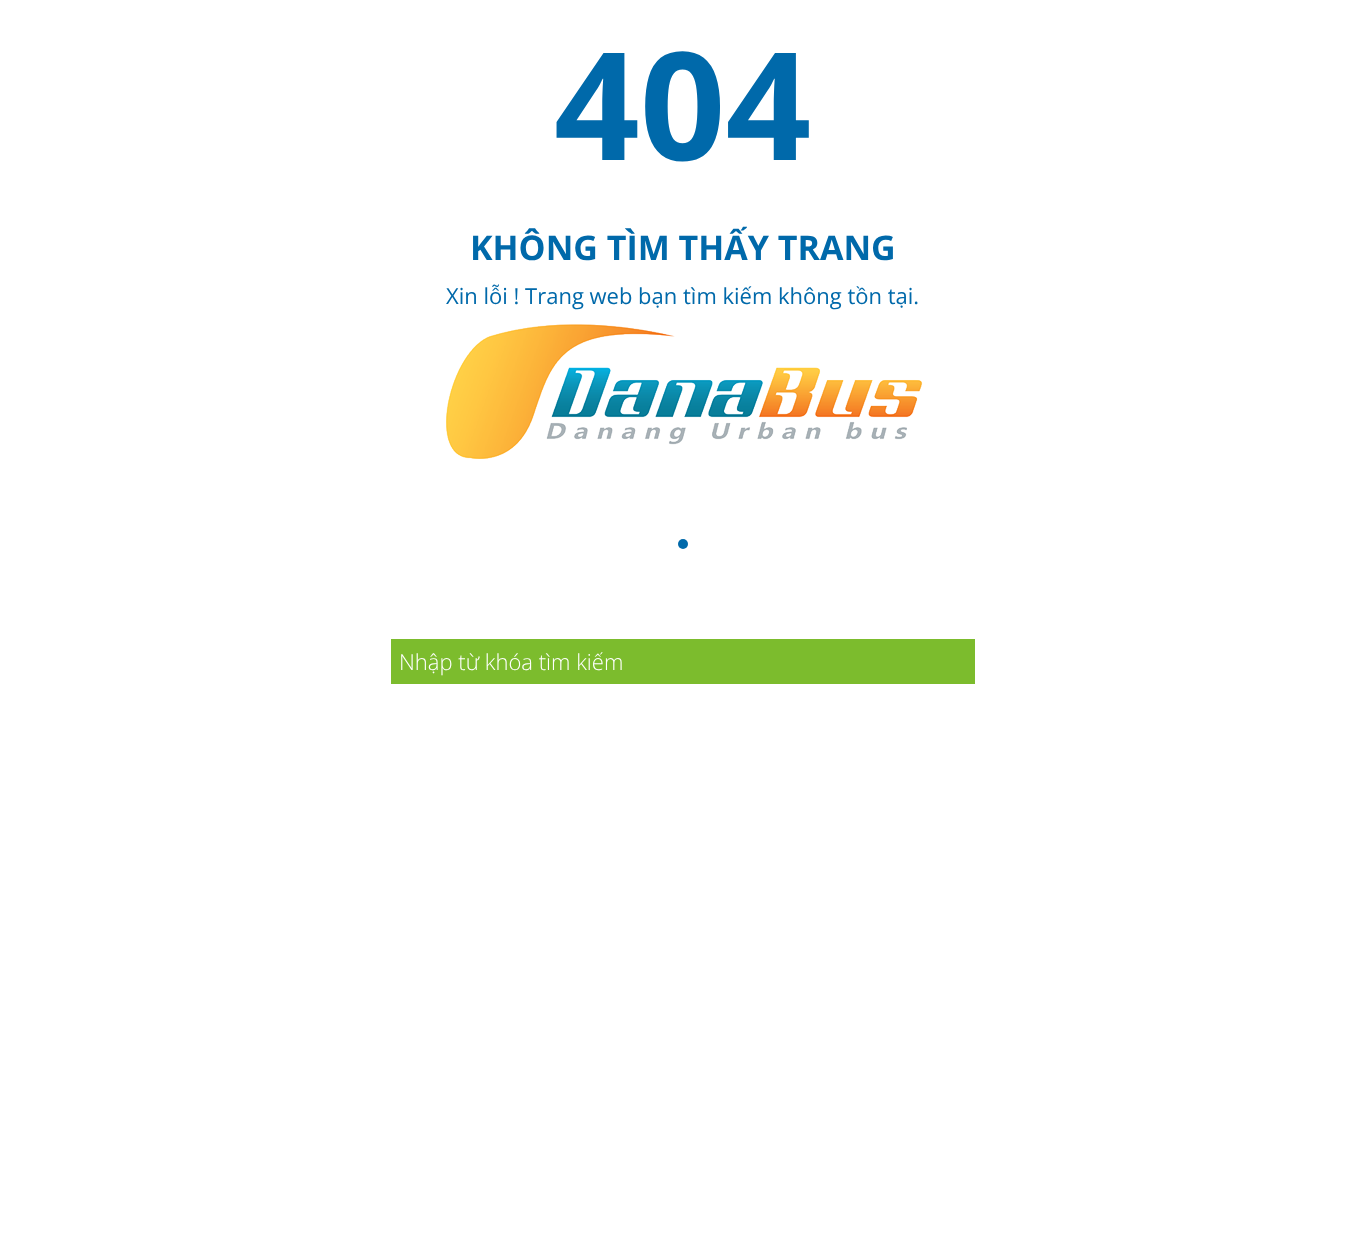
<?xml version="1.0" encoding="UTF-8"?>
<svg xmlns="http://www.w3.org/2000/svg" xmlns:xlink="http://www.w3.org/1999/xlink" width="1366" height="1255">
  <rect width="100%" height="100%" fill="#ffffff" />
  <image x="446" y="324" width="477" height="135" xlink:href="image1.png" />
  <circle cx="683" cy="544" r="5" fill="#0069aa" />
  <rect x="391" y="639" width="584" height="45" fill="#7cbc2d" />
  <text x="554" y="160" style="font-family: Open Sans; font-size: 150px; font-weight: bold; fill: #0069aa">404</text>
  <text x="470" y="260" style="font-family: Open Sans; font-size: 34px; font-weight: bold; fill: #0069aa">KHÔNG TÌM THẤY TRANG</text>
  <text x="446" y="304" style="font-family: Open Sans; font-size: 22px; fill: #0069aa">Xin lỗi ! Trang web bạn tìm kiếm không tồn tại.</text>
  <text x="399" y="670" style="font-family: Open Sans; font-size: 22px; font-weight: 300; fill: #ffffff">Nhập từ khóa tìm kiếm</text>
</svg>
